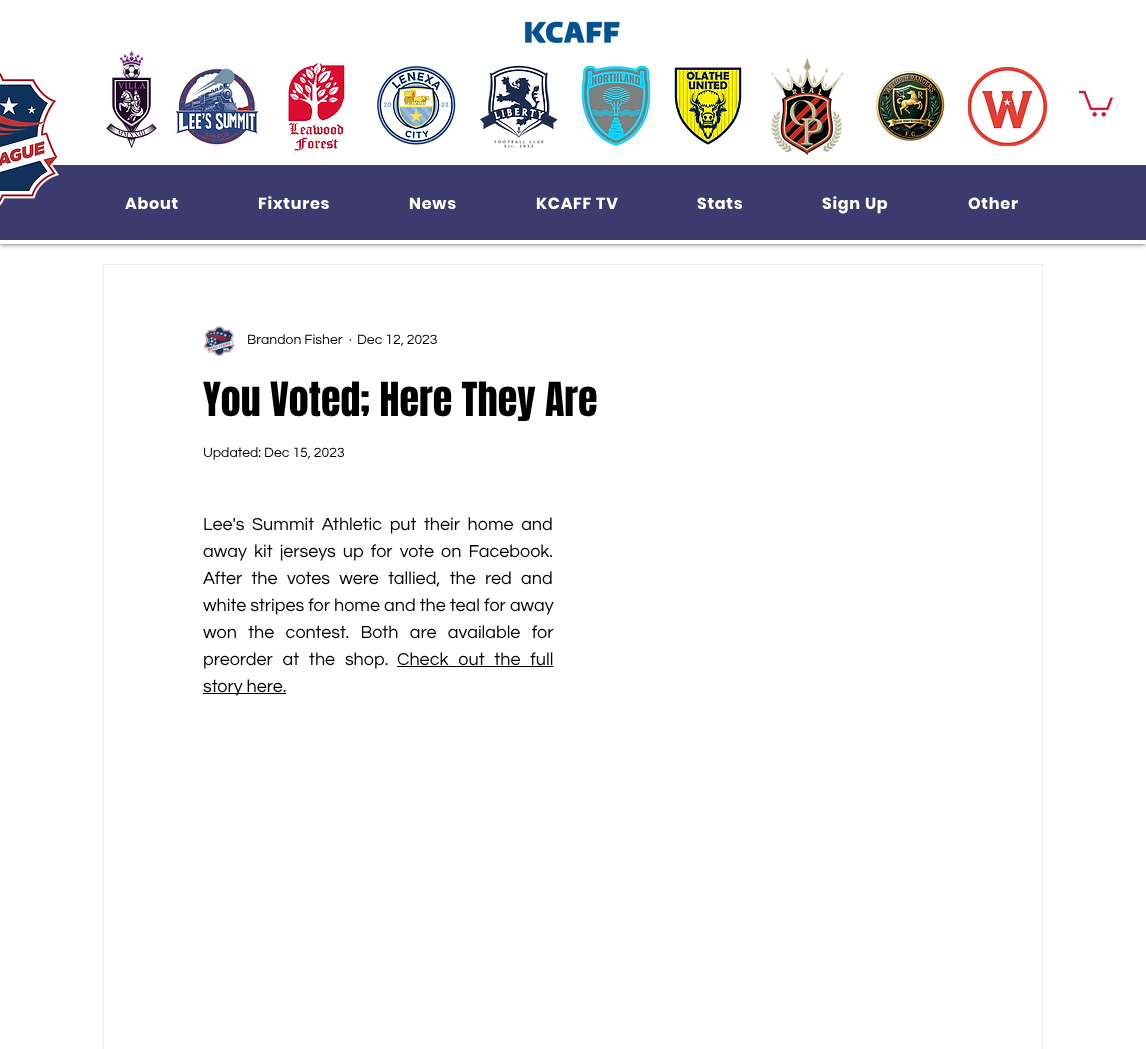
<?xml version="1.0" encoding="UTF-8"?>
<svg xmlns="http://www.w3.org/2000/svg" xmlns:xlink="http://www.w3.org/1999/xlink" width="1146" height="1049">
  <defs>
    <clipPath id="clip1"><rect x="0" y="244" width="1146" height="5" /></clipPath>
  </defs>
  <rect width="100%" height="100%" fill="#ffffff" />
  <g clip-path="url(#clip1)">
    <rect width="1146" height="244" fill="#000000" fill-opacity="0.7" filter="blur(2.5px)" />
  </g>
  <rect y="165" width="1146" height="75" fill="#3c3b6e" />
  <path d="M 77 92 c 0 52 -48 93 -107 93 c -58 0 -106 -41 -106 -93 c 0 -51 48 -92 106 -92 c 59 0 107 41 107 92 z" fill="#ffffff" />
  <image x="525" y="21" width="95" height="23" xlink:href="image1.png" />
  <image x="0" y="72" width="59" height="134" xlink:href="image2.png" />
  <image x="106" y="50" width="51" height="99" xlink:href="image3.png" />
  <image x="174" y="67" width="86" height="79" xlink:href="image4.png" />
  <image x="288" y="62" width="57" height="89" xlink:href="image5.png" />
  <image x="377" y="66" width="79" height="79" xlink:href="image6.png" />
  <image x="480" y="65" width="78" height="83" xlink:href="image7.png" />
  <image x="582" y="66" width="68" height="80" xlink:href="image8.png" />
  <image x="673" y="67" width="70" height="79" xlink:href="image9.png" />
  <image x="771" y="58" width="73" height="97" xlink:href="image10.png" />
  <image x="876" y="70" width="69" height="71" xlink:href="image11.png" />
  <image x="968" y="67" width="79" height="79" xlink:href="image12.png" />
  <image x="1079" y="90" width="34" height="27" xlink:href="image13.png" />
  <rect x="103.5" y="264.5" width="939" height="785" fill="none" stroke="#eeecec" />
  <image x="203" y="326" width="32" height="31" xlink:href="image14.png" />
  <rect x="397" y="666" width="156" height="1" fill="#000000" />
  <rect x="203" y="693" width="83" height="1" fill="#000000" />
  <text x="125" y="209" style="font-family: Poppins; font-size: 16px; font-weight: bold; letter-spacing: 0.75px; fill: #ffffff">About</text>
  <text x="258" y="209" style="font-family: Poppins; font-size: 16px; font-weight: bold; letter-spacing: 0.75px; fill: #ffffff">Fixtures</text>
  <text x="409" y="209" style="font-family: Poppins; font-size: 16px; font-weight: bold; letter-spacing: 0.75px; fill: #ffffff">News</text>
  <text x="536" y="209" style="font-family: Poppins; font-size: 16px; font-weight: bold; letter-spacing: 0.75px; fill: #ffffff">KCAFF TV</text>
  <text x="697" y="209" style="font-family: Poppins; font-size: 16px; font-weight: bold; letter-spacing: 0.75px; fill: #ffffff">Stats</text>
  <text x="822" y="209" style="font-family: Poppins; font-size: 16px; font-weight: bold; letter-spacing: 0.75px; fill: #ffffff">Sign Up</text>
  <text x="968" y="209" style="font-family: Poppins; font-size: 16px; font-weight: bold; letter-spacing: 0.75px; fill: #ffffff">Other</text>
  <text x="247" y="344" style="font-family: Questrial; font-size: 14px; fill: #000000">Brandon Fisher</text>
  <text x="349" y="344" style="font-family: Questrial; font-size: 14px; fill: #000000">·</text>
  <text x="357" y="344" style="font-family: Questrial; font-size: 14px; fill: #000000">Dec 12, 2023</text>
  <text x="203" y="416" style="font-family: Anton; font-size: 40px; fill: #000000">You Voted; Here They Are</text>
  <text x="203" y="457" style="font-family: Questrial; font-size: 14px; fill: #000000">Updated: Dec 15, 2023</text>
  <text x="203" y="530" word-spacing="3.75" style="font-family: Questrial; font-size: 18px; fill: #000000">Lee's Summit Athletic put their home and</text>
  <text x="203" y="557" word-spacing="3.25" style="font-family: Questrial; font-size: 18px; fill: #000000">away kit jerseys up for vote on Facebook.</text>
  <text x="203" y="584" word-spacing="5.5" style="font-family: Questrial; font-size: 18px; fill: #000000">After the votes were tallied, the red and</text>
  <text x="203" y="611" word-spacing="0.25" style="font-family: Questrial; font-size: 18px; fill: #000000">white stripes for home and the teal for away</text>
  <text x="203" y="638" word-spacing="7.5" style="font-family: Questrial; font-size: 18px; fill: #000000">won the contest. Both are available for</text>
  <text x="203" y="665" word-spacing="6" style="font-family: Questrial; font-size: 18px; fill: #000000">preorder at the shop.</text>
  <text x="397" y="665" word-spacing="6" style="font-family: Questrial; font-size: 18px; fill: #000000">Check out the full</text>
  <text x="203" y="692" style="font-family: Questrial; font-size: 18px; fill: #000000">story here.</text>
</svg>
